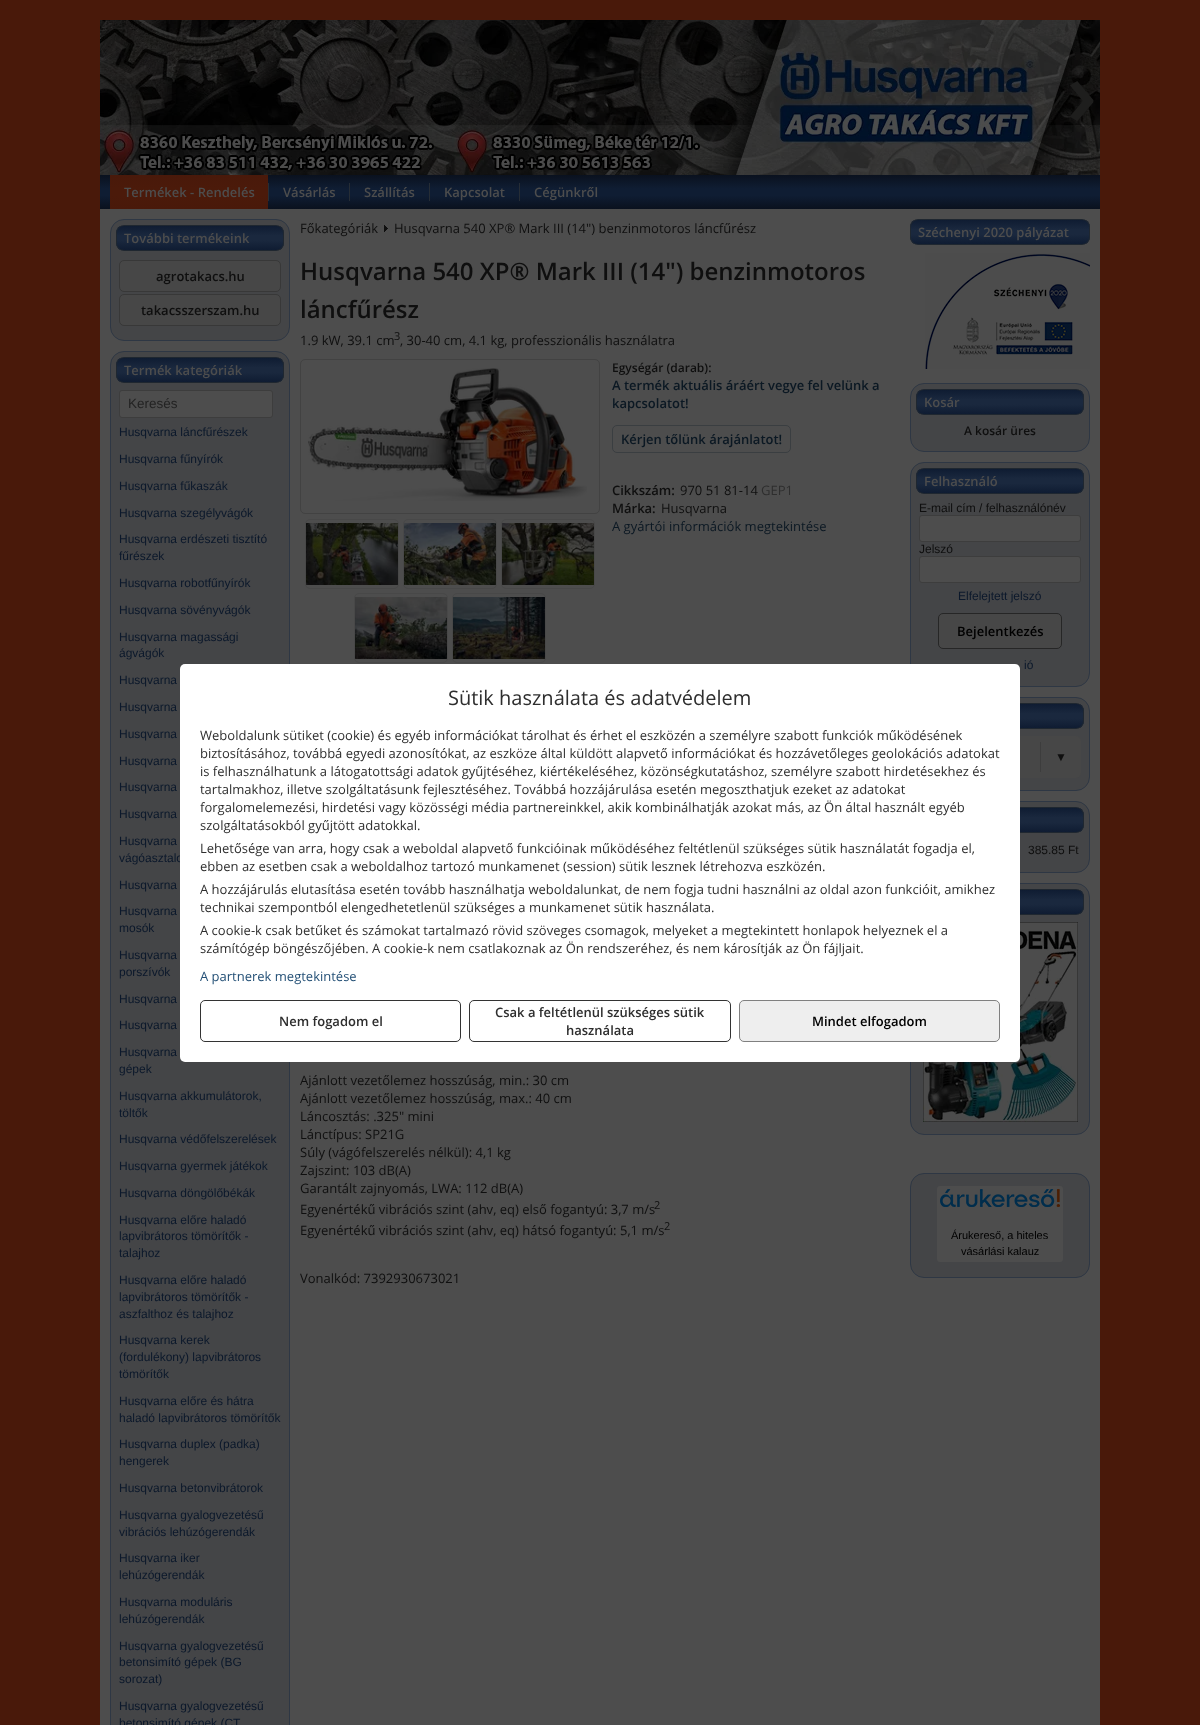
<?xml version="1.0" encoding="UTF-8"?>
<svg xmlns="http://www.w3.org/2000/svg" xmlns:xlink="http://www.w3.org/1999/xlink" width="1200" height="1725">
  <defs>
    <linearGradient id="g1" gradientUnits="userSpaceOnUse" x1="600" y1="175" x2="600" y2="209"><stop offset="0" stop-color="#0a111e" /><stop offset="0.4" stop-color="#0f1d33" /><stop offset="0.6" stop-color="#0f1d33" /><stop offset="1" stop-color="#0a111e" /></linearGradient>
    <linearGradient id="g2" gradientUnits="userSpaceOnUse" x1="189" y1="175" x2="189" y2="209"><stop offset="0" stop-color="#49190a" /><stop offset="0.4" stop-color="#4b1a0a" /><stop offset="0.6" stop-color="#4b1a0a" /><stop offset="1" stop-color="#49190a" /></linearGradient>
    <clipPath id="clip1"><rect x="116" y="225" width="168" height="26" rx="8" /></clipPath>
    <linearGradient id="g3" gradientUnits="userSpaceOnUse" x1="200" y1="226" x2="200" y2="250"><stop offset="0" stop-color="#0f1c32" /><stop offset="0.4" stop-color="#1a283e" /><stop offset="0.6" stop-color="#1a283e" /><stop offset="1" stop-color="#0f1c32" /></linearGradient>
    <clipPath id="clip2"><rect x="116" y="357" width="168" height="26" rx="8" /></clipPath>
    <linearGradient id="g4" gradientUnits="userSpaceOnUse" x1="200" y1="358" x2="200" y2="382"><stop offset="0" stop-color="#0f1c32" /><stop offset="0.4" stop-color="#1a283e" /><stop offset="0.6" stop-color="#1a283e" /><stop offset="1" stop-color="#0f1c32" /></linearGradient>
    <clipPath id="clip3"><rect x="910" y="219" width="180" height="26" rx="8" /></clipPath>
    <linearGradient id="g5" gradientUnits="userSpaceOnUse" x1="1000" y1="220" x2="1000" y2="244"><stop offset="0" stop-color="#0f1c32" /><stop offset="0.4" stop-color="#1a283e" /><stop offset="0.6" stop-color="#1a283e" /><stop offset="1" stop-color="#0f1c32" /></linearGradient>
    <clipPath id="clip4"><rect x="916" y="389" width="168" height="26" rx="8" /></clipPath>
    <linearGradient id="g6" gradientUnits="userSpaceOnUse" x1="1000" y1="390" x2="1000" y2="414"><stop offset="0" stop-color="#0f1c32" /><stop offset="0.4" stop-color="#1a283e" /><stop offset="0.6" stop-color="#1a283e" /><stop offset="1" stop-color="#0f1c32" /></linearGradient>
    <clipPath id="clip5"><rect x="916" y="468" width="168" height="26" rx="8" /></clipPath>
    <linearGradient id="g7" gradientUnits="userSpaceOnUse" x1="1000" y1="469" x2="1000" y2="493"><stop offset="0" stop-color="#0f1c32" /><stop offset="0.4" stop-color="#1a283e" /><stop offset="0.6" stop-color="#1a283e" /><stop offset="1" stop-color="#0f1c32" /></linearGradient>
    <clipPath id="clip6"><rect x="916" y="703" width="168" height="26" rx="8" /></clipPath>
    <linearGradient id="g8" gradientUnits="userSpaceOnUse" x1="1000" y1="704" x2="1000" y2="728"><stop offset="0" stop-color="#0f1c32" /><stop offset="0.4" stop-color="#1a283e" /><stop offset="0.6" stop-color="#1a283e" /><stop offset="1" stop-color="#0f1c32" /></linearGradient>
    <clipPath id="clip7"><rect x="916" y="807" width="168" height="26" rx="8" /></clipPath>
    <linearGradient id="g9" gradientUnits="userSpaceOnUse" x1="1000" y1="808" x2="1000" y2="832"><stop offset="0" stop-color="#0f1c32" /><stop offset="0.4" stop-color="#1a283e" /><stop offset="0.6" stop-color="#1a283e" /><stop offset="1" stop-color="#0f1c32" /></linearGradient>
    <clipPath id="clip8"><rect x="916" y="889" width="168" height="26" rx="8" /></clipPath>
    <linearGradient id="g10" gradientUnits="userSpaceOnUse" x1="1000" y1="890" x2="1000" y2="914"><stop offset="0" stop-color="#0f1c32" /><stop offset="0.4" stop-color="#1a283e" /><stop offset="0.6" stop-color="#1a283e" /><stop offset="1" stop-color="#0f1c32" /></linearGradient>
  </defs>
  <rect width="100%" height="100%" fill="#49190a" />
  <rect x="100" y="209" width="1000" height="1516" fill="#4d4d4d" />
  <image x="100" y="20" width="1000" height="155" xlink:href="image1.png" />
  <rect x="100" y="175" width="1000" height="34" fill="url(#g1)" />
  <rect x="268" y="183" width="1" height="18" fill="#262d35" />
  <rect x="110" y="175" width="158" height="34" fill="url(#g2)" />
  <rect x="349" y="183" width="1" height="18" fill="#262d35" />
  <rect x="429" y="183" width="1" height="18" fill="#262d35" />
  <rect x="519" y="183" width="1" height="18" fill="#262d35" />
  <rect x="110.5" y="219.5" width="179" height="121" rx="13.5" fill="#444547" stroke="#2e3744" />
  <g clip-path="url(#clip1)">
    <rect x="116" y="226" width="168" height="24" fill="url(#g3)" />
  </g>
  <rect x="116.5" y="225.5" width="167" height="25" rx="7.5" fill="none" stroke="#1f2730" />
  <rect x="119.5" y="260.5" width="161" height="31" rx="4.5" fill="#474747" stroke="#383838" />
  <rect x="119.5" y="294.5" width="161" height="31" rx="4.5" fill="#474747" stroke="#383838" />
  <rect x="110.5" y="351.5" width="179" height="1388" rx="13.5" fill="#444547" stroke="#2e3744" />
  <g clip-path="url(#clip2)">
    <rect x="116" y="358" width="168" height="24" fill="url(#g4)" />
  </g>
  <rect x="116.5" y="357.5" width="167" height="25" rx="7.5" fill="none" stroke="#1f2730" />
  <rect x="119.5" y="390.5" width="153" height="27" rx="2.5" fill="#4d4d4d" stroke="#3d3d3d" />
  <image x="384" y="225" width="4" height="7" xlink:href="image2.png" />
  <rect x="300.5" y="359.5" width="299" height="154" rx="4.5" fill="none" stroke="#424242" />
  <image x="308" y="368" width="279" height="133" xlink:href="image3.png" />
  <image x="306" y="523" width="92" height="62" xlink:href="image4.png" />
  <rect x="305.5" y="519.5" width="93" height="69" rx="4.5" fill="none" stroke="#484848" />
  <image x="404" y="523" width="92" height="62" xlink:href="image5.png" />
  <rect x="403.5" y="519.5" width="93" height="69" rx="4.5" fill="none" stroke="#484848" />
  <image x="502" y="523" width="92" height="62" xlink:href="image6.png" />
  <rect x="501.5" y="519.5" width="93" height="69" rx="4.5" fill="none" stroke="#484848" />
  <image x="355" y="597" width="92" height="62" xlink:href="image7.png" />
  <rect x="354.5" y="593.5" width="93" height="69" rx="4.5" fill="none" stroke="#484848" />
  <image x="453" y="597" width="92" height="62" xlink:href="image8.png" />
  <rect x="452.5" y="593.5" width="93" height="69" rx="4.5" fill="none" stroke="#484848" />
  <rect x="612.5" y="425.5" width="178" height="27" rx="4.5" fill="none" stroke="#3a3e41" />
  <g clip-path="url(#clip3)">
    <rect x="910" y="220" width="180" height="24" fill="url(#g5)" />
  </g>
  <rect x="910.5" y="219.5" width="179" height="25" rx="7.5" fill="none" stroke="#1f2730" />
  <image x="925" y="253" width="165" height="116" xlink:href="image9.png" />
  <rect x="910.5" y="383.5" width="179" height="68" rx="13.5" fill="#444547" stroke="#2e3744" />
  <g clip-path="url(#clip4)">
    <rect x="916" y="390" width="168" height="24" fill="url(#g6)" />
  </g>
  <rect x="916.5" y="389.5" width="167" height="25" rx="7.5" fill="none" stroke="#1f2730" />
  <rect x="910.5" y="462.5" width="179" height="224" rx="13.5" fill="#444547" stroke="#2e3744" />
  <g clip-path="url(#clip5)">
    <rect x="916" y="469" width="168" height="24" fill="url(#g7)" />
  </g>
  <rect x="916.5" y="468.5" width="167" height="25" rx="7.5" fill="none" stroke="#1f2730" />
  <rect x="919.5" y="515.5" width="161" height="26" rx="2.5" fill="#4d4d4d" stroke="#3d3d3d" />
  <rect x="919.5" y="556.5" width="161" height="26" rx="2.5" fill="#4d4d4d" stroke="#3d3d3d" />
  <rect x="938.5" y="613.5" width="123" height="35" rx="4.5" fill="#474747" stroke="#262626" />
  <rect x="910.5" y="697.5" width="179" height="93" rx="13.5" fill="#444547" stroke="#2e3744" />
  <g clip-path="url(#clip6)">
    <rect x="1020" y="704" width="64" height="24" fill="url(#g8)" />
  </g>
  <rect x="916.5" y="703.5" width="167" height="25" rx="7.5" fill="none" stroke="#1f2730" />
  <rect x="919" y="736" width="162" height="42" rx="5" fill="#474747" />
  <rect x="1040" y="742" width="1" height="30" fill="#3d3d3d" />
  <rect x="910.5" y="801.5" width="179" height="71" rx="13.5" fill="#444547" stroke="#2e3744" />
  <g clip-path="url(#clip7)">
    <rect x="1020" y="808" width="64" height="24" fill="url(#g9)" />
  </g>
  <rect x="916.5" y="807.5" width="167" height="25" rx="7.5" fill="none" stroke="#1f2730" />
  <rect x="910.5" y="883.5" width="179" height="251" rx="13.5" fill="#444547" stroke="#2e3744" />
  <g clip-path="url(#clip8)">
    <rect x="1020" y="890" width="64" height="24" fill="url(#g10)" />
  </g>
  <rect x="916.5" y="889.5" width="167" height="25" rx="7.5" fill="none" stroke="#1f2730" />
  <image x="923" y="922" width="155" height="200" xlink:href="image10.png" />
  <rect x="910.5" y="1173.5" width="179" height="104" rx="13.5" fill="#444547" stroke="#2e3744" />
  <rect x="937" y="1186" width="126" height="76" rx="3" fill="#4d4d4d" />
  <image x="940" y="1189" width="120" height="18" xlink:href="image11.png" />
  <text x="1067" y="126" style="font-family: Open Sans; font-size: 90px; font-weight: bold; fill: #1e1e1d">›</text>
  <text x="124" y="197" style="font-family: Open Sans; font-size: 13px; font-weight: 600; fill: #4d4d4d">Termékek - Rendelés</text>
  <text x="283" y="197" style="font-family: Open Sans; font-size: 13px; font-weight: 600; fill: #4d4d4d">Vásárlás</text>
  <text x="364" y="197" style="font-family: Open Sans; font-size: 13px; font-weight: 600; fill: #4d4d4d">Szállítás</text>
  <text x="444" y="197" style="font-family: Open Sans; font-size: 13px; font-weight: 600; fill: #4d4d4d">Kapcsolat</text>
  <text x="534" y="197" style="font-family: Open Sans; font-size: 13px; font-weight: 600; fill: #4d4d4d">Cégünkről</text>
  <text x="124" y="243" style="font-family: Open Sans; font-size: 13px; font-weight: 600; fill: #4d4d4d">További termékeink</text>
  <text x="156" y="281" style="font-family: Open Sans; font-size: 13px; font-weight: 600; fill: #0f0f0f">agrotakacs.hu</text>
  <text x="141" y="315" style="font-family: Open Sans; font-size: 13px; font-weight: 600; fill: #0f0f0f">takacsszerszam.hu</text>
  <text x="124" y="375" style="font-family: Open Sans; font-size: 13px; font-weight: 600; fill: #4d4d4d">Termék kategóriák</text>
  <text x="128" y="408" style="font-family: Liberation Sans; font-size: 13.5px; fill: #232323">Keresés</text>
  <text x="119" y="436" style="font-family: Liberation Sans; font-size: 12px; fill: #0b182b">Husqvarna láncfűrészek</text>
  <text x="119" y="463" style="font-family: Liberation Sans; font-size: 12px; fill: #0b182b">Husqvarna fűnyírók</text>
  <text x="119" y="490" style="font-family: Liberation Sans; font-size: 12px; fill: #0b182b">Husqvarna fűkaszák</text>
  <text x="119" y="517" style="font-family: Liberation Sans; font-size: 12px; fill: #0b182b">Husqvarna szegélyvágók</text>
  <text x="119" y="543" style="font-family: Liberation Sans; font-size: 12px; fill: #0b182b">Husqvarna erdészeti tisztító</text>
  <text x="119" y="560" style="font-family: Liberation Sans; font-size: 12px; fill: #0b182b">fűrészek</text>
  <text x="119" y="587" style="font-family: Liberation Sans; font-size: 12px; fill: #0b182b">Husqvarna robotfűnyírók</text>
  <text x="119" y="614" style="font-family: Liberation Sans; font-size: 12px; fill: #0b182b">Husqvarna sövényvágók</text>
  <text x="119" y="641" style="font-family: Liberation Sans; font-size: 12px; fill: #0b182b">Husqvarna magassági</text>
  <text x="119" y="657" style="font-family: Liberation Sans; font-size: 12px; fill: #0b182b">ágvágók</text>
  <text x="119" y="684" style="font-family: Liberation Sans; font-size: 12px; fill: #0b182b">Husqvarna</text>
  <text x="119" y="711" style="font-family: Liberation Sans; font-size: 12px; fill: #0b182b">Husqvarna</text>
  <text x="119" y="738" style="font-family: Liberation Sans; font-size: 12px; fill: #0b182b">Husqvarna</text>
  <text x="119" y="765" style="font-family: Liberation Sans; font-size: 12px; fill: #0b182b">Husqvarna</text>
  <text x="119" y="791" style="font-family: Liberation Sans; font-size: 12px; fill: #0b182b">Husqvarna</text>
  <text x="119" y="818" style="font-family: Liberation Sans; font-size: 12px; fill: #0b182b">Husqvarna</text>
  <text x="119" y="845" style="font-family: Liberation Sans; font-size: 12px; fill: #0b182b">Husqvarna</text>
  <text x="119" y="862" style="font-family: Liberation Sans; font-size: 12px; fill: #0b182b">vágóasztalo</text>
  <text x="119" y="889" style="font-family: Liberation Sans; font-size: 12px; fill: #0b182b">Husqvarna</text>
  <text x="119" y="915" style="font-family: Liberation Sans; font-size: 12px; fill: #0b182b">Husqvarna</text>
  <text x="119" y="932" style="font-family: Liberation Sans; font-size: 12px; fill: #0b182b">mosók</text>
  <text x="119" y="959" style="font-family: Liberation Sans; font-size: 12px; fill: #0b182b">Husqvarna</text>
  <text x="119" y="976" style="font-family: Liberation Sans; font-size: 12px; fill: #0b182b">porszívók</text>
  <text x="119" y="1003" style="font-family: Liberation Sans; font-size: 12px; fill: #0b182b">Husqvarna</text>
  <text x="119" y="1029" style="font-family: Liberation Sans; font-size: 12px; fill: #0b182b">Husqvarna</text>
  <text x="119" y="1056" style="font-family: Liberation Sans; font-size: 12px; fill: #0b182b">Husqvarna</text>
  <text x="119" y="1073" style="font-family: Liberation Sans; font-size: 12px; fill: #0b182b">gépek</text>
  <text x="119" y="1100" style="font-family: Liberation Sans; font-size: 12px; fill: #0b182b">Husqvarna akkumulátorok,</text>
  <text x="119" y="1117" style="font-family: Liberation Sans; font-size: 12px; fill: #0b182b">töltők</text>
  <text x="119" y="1143" style="font-family: Liberation Sans; font-size: 12px; fill: #0b182b">Husqvarna védőfelszerelések</text>
  <text x="119" y="1170" style="font-family: Liberation Sans; font-size: 12px; fill: #0b182b">Husqvarna gyermek játékok</text>
  <text x="119" y="1197" style="font-family: Liberation Sans; font-size: 12px; fill: #0b182b">Husqvarna döngölőbékák</text>
  <text x="119" y="1224" style="font-family: Liberation Sans; font-size: 12px; fill: #0b182b">Husqvarna előre haladó</text>
  <text x="119" y="1240" style="font-family: Liberation Sans; font-size: 12px; fill: #0b182b">lapvibrátoros tömörítők -</text>
  <text x="119" y="1257" style="font-family: Liberation Sans; font-size: 12px; fill: #0b182b">talajhoz</text>
  <text x="119" y="1284" style="font-family: Liberation Sans; font-size: 12px; fill: #0b182b">Husqvarna előre haladó</text>
  <text x="119" y="1301" style="font-family: Liberation Sans; font-size: 12px; fill: #0b182b">lapvibrátoros tömörítők -</text>
  <text x="119" y="1318" style="font-family: Liberation Sans; font-size: 12px; fill: #0b182b">aszfalthoz és talajhoz</text>
  <text x="119" y="1344" style="font-family: Liberation Sans; font-size: 12px; fill: #0b182b">Husqvarna kerek</text>
  <text x="119" y="1361" style="font-family: Liberation Sans; font-size: 12px; fill: #0b182b">(fordulékony) lapvibrátoros</text>
  <text x="119" y="1378" style="font-family: Liberation Sans; font-size: 12px; fill: #0b182b">tömörítők</text>
  <text x="119" y="1405" style="font-family: Liberation Sans; font-size: 12px; fill: #0b182b">Husqvarna előre és hátra</text>
  <text x="119" y="1422" style="font-family: Liberation Sans; font-size: 12px; fill: #0b182b">haladó lapvibrátoros tömörítők</text>
  <text x="119" y="1448" style="font-family: Liberation Sans; font-size: 12px; fill: #0b182b">Husqvarna duplex (padka)</text>
  <text x="119" y="1465" style="font-family: Liberation Sans; font-size: 12px; fill: #0b182b">hengerek</text>
  <text x="119" y="1492" style="font-family: Liberation Sans; font-size: 12px; fill: #0b182b">Husqvarna betonvibrátorok</text>
  <text x="119" y="1519" style="font-family: Liberation Sans; font-size: 12px; fill: #0b182b">Husqvarna gyalogvezetésű</text>
  <text x="119" y="1536" style="font-family: Liberation Sans; font-size: 12px; fill: #0b182b">vibrációs lehúzógerendák</text>
  <text x="119" y="1562" style="font-family: Liberation Sans; font-size: 12px; fill: #0b182b">Husqvarna iker</text>
  <text x="119" y="1579" style="font-family: Liberation Sans; font-size: 12px; fill: #0b182b">lehúzógerendák</text>
  <text x="119" y="1606" style="font-family: Liberation Sans; font-size: 12px; fill: #0b182b">Husqvarna moduláris</text>
  <text x="119" y="1623" style="font-family: Liberation Sans; font-size: 12px; fill: #0b182b">lehúzógerendák</text>
  <text x="119" y="1650" style="font-family: Liberation Sans; font-size: 12px; fill: #0b182b">Husqvarna gyalogvezetésű</text>
  <text x="119" y="1666" style="font-family: Liberation Sans; font-size: 12px; fill: #0b182b">betonsimító gépek (BG</text>
  <text x="119" y="1683" style="font-family: Liberation Sans; font-size: 12px; fill: #0b182b">sorozat)</text>
  <text x="119" y="1710" style="font-family: Liberation Sans; font-size: 12px; fill: #0b182b">Husqvarna gyalogvezetésű</text>
  <text x="119" y="1727" style="font-family: Liberation Sans; font-size: 12px; fill: #0b182b">betonsimító gépek (CT</text>
  <text x="300" y="233" style="font-family: Open Sans; font-size: 13px; fill: #0f0f0f">Főkategóriák</text>
  <text x="394" y="233" style="font-family: Open Sans; font-size: 13px; fill: #0f0f0f">Husqvarna 540 XP® Mark III (14") benzinmotoros láncfűrész</text>
  <text x="300" y="280" style="font-family: Open Sans; font-size: 24px; font-weight: 600; fill: #0f0f0f">Husqvarna 540 XP® Mark III (14") benzinmotoros</text>
  <text x="300" y="318" style="font-family: Open Sans; font-size: 24px; font-weight: 600; fill: #0f0f0f">láncfűrész</text>
  <text x="300" y="345" style="font-family: Open Sans; font-size: 13px; fill: #0f0f0f">1.9 kW, 39.1 cm</text>
  <text x="394" y="340" style="font-family: Open Sans; font-size: 11px; fill: #0f0f0f">3</text>
  <text x="400" y="345" style="font-family: Open Sans; font-size: 13px; fill: #0f0f0f">, 30-40 cm, 4.1 kg, professzionális használatra</text>
  <text x="612" y="372" style="font-family: Open Sans; font-size: 12px; font-weight: 600; fill: #0f0f0f">Egységár (darab):</text>
  <text x="612" y="390" style="font-family: Open Sans; font-size: 13px; font-weight: 600; fill: #0b1823">A termék aktuális áráért vegye fel velünk a</text>
  <text x="612" y="408" style="font-family: Open Sans; font-size: 13px; font-weight: 600; fill: #0b1823">kapcsolatot!</text>
  <text x="621" y="444" style="font-family: Open Sans; font-size: 13px; font-weight: 600; fill: #0b1823">Kérjen tőlünk árajánlatot!</text>
  <text x="612" y="495" style="font-family: Open Sans; font-size: 13px; font-weight: 600; fill: #0f0f0f">Cikkszám:</text>
  <text x="680" y="495" style="font-family: Open Sans; font-size: 13px; fill: #0f0f0f">970 51 81-14</text>
  <text x="761" y="495" style="font-family: Open Sans; font-size: 13px; fill: #2e2e2e">GEP1</text>
  <text x="612" y="513" style="font-family: Open Sans; font-size: 13px; font-weight: 600; fill: #0f0f0f">Márka:</text>
  <text x="661" y="513" style="font-family: Open Sans; font-size: 13px; fill: #0f0f0f">Husqvarna</text>
  <text x="612" y="531" style="font-family: Open Sans; font-size: 13px; fill: #0b1823">A gyártói információk megtekintése</text>
  <text x="300" y="1085" style="font-family: Open Sans; font-size: 13px; fill: #0f0f0f">Ajánlott vezetőlemez hosszúság, min.: 30 cm</text>
  <text x="300" y="1103" style="font-family: Open Sans; font-size: 13px; fill: #0f0f0f">Ajánlott vezetőlemez hosszúság, max.: 40 cm</text>
  <text x="300" y="1121" style="font-family: Open Sans; font-size: 13px; fill: #0f0f0f">Láncosztás: .325" mini</text>
  <text x="300" y="1139" style="font-family: Open Sans; font-size: 13px; fill: #0f0f0f">Lánctípus: SP21G</text>
  <text x="300" y="1157" style="font-family: Open Sans; font-size: 13px; fill: #0f0f0f">Súly (vágófelszerelés nélkül): 4,1 kg</text>
  <text x="300" y="1175" style="font-family: Open Sans; font-size: 13px; fill: #0f0f0f">Zajszint: 103 dB(A)</text>
  <text x="300" y="1193" style="font-family: Open Sans; font-size: 13px; fill: #0f0f0f">Garantált zajnyomás, LWA: 112 dB(A)</text>
  <text x="300" y="1214" style="font-family: Open Sans; font-size: 13px; fill: #0f0f0f">Egyenértékű vibrációs szint (ahv, eq) első fogantyú: 3,7 m/s</text>
  <text x="654" y="1209" style="font-family: Open Sans; font-size: 11px; fill: #0f0f0f">2</text>
  <text x="300" y="1235" style="font-family: Open Sans; font-size: 13px; fill: #0f0f0f">Egyenértékű vibrációs szint (ahv, eq) hátsó fogantyú: 5,1 m/s</text>
  <text x="664" y="1230" style="font-family: Open Sans; font-size: 11px; fill: #0f0f0f">2</text>
  <text x="300" y="1283" style="font-family: Open Sans; font-size: 13px; fill: #0f0f0f">Vonalkód: 7392930673021</text>
  <text x="918" y="237" style="font-family: Open Sans; font-size: 13px; font-weight: 600; fill: #4d4d4d">Széchenyi 2020 pályázat</text>
  <text x="924" y="407" style="font-family: Open Sans; font-size: 13px; font-weight: 600; fill: #4d4d4d">Kosár</text>
  <text x="964" y="435" style="font-family: Open Sans; font-size: 12px; font-weight: 600; fill: #0f0f0f">A kosár üres</text>
  <text x="924" y="486" style="font-family: Open Sans; font-size: 13px; font-weight: 600; fill: #4d4d4d">Felhasználó</text>
  <text x="919" y="512" style="font-family: Liberation Sans; font-size: 12px; fill: #0f0f0f">E-mail cím / felhasználónév</text>
  <text x="919" y="553" style="font-family: Liberation Sans; font-size: 12px; fill: #0f0f0f">Jelszó</text>
  <text x="958" y="600" style="font-family: Liberation Sans; font-size: 12px; fill: #0b182b">Elfelejtett jelszó</text>
  <text x="957" y="636" style="font-family: Open Sans; font-size: 13px; font-weight: 600; fill: #000000">Bejelentkezés</text>
  <text x="1024" y="669" style="font-family: Liberation Sans; font-size: 12px; fill: #0b182b">ió</text>
  <text x="1055" y="761" style="font-family: Liberation Serif; font-size: 12px; fill: #0f0f0f">▼</text>
  <text x="1028" y="854" style="font-family: Liberation Sans; font-size: 12px; fill: #0f0f0f">385.85 Ft</text>
  <text x="951" y="1239" style="font-family: Liberation Sans; font-size: 11px; fill: #000000">Árukereső, a hiteles</text>
  <text x="961" y="1255" style="font-family: Liberation Sans; font-size: 11px; fill: #000000">vásárlási kalauz</text>
  <rect x="180" y="664" width="840" height="398" rx="5" fill="#ffffff" />
  <text x="448" y="705" style="font-family: Open Sans; font-size: 20px; fill: #2e2e2e">Sütik használata és adatvédelem</text>
  <text x="200" y="740" style="font-family: Open Sans; font-size: 13px; fill: #2e2e2e">Weboldalunk sütiket (cookie) és egyéb információkat tárolhat és érhet el eszközén a személyre szabott funkciók működésének</text>
  <text x="200" y="758" style="font-family: Open Sans; font-size: 13px; fill: #2e2e2e">biztosításához, továbbá egyedi azonosítókat, az eszköze által küldött alapvető információkat és hozzávetőleges geolokációs adatokat</text>
  <text x="200" y="776" style="font-family: Open Sans; font-size: 13px; fill: #2e2e2e">is felhasználhatunk a látogatottsági adatok gyűjtéséhez, kiértékeléséhez, közönségkutatáshoz, személyre szabott hirdetésekhez és</text>
  <text x="200" y="794" style="font-family: Open Sans; font-size: 13px; fill: #2e2e2e">tartalmakhoz, illetve szolgáltatásunk fejlesztéséhez. Továbbá hozzájárulása esetén megoszthatjuk ezeket az adatokat</text>
  <text x="200" y="812" style="font-family: Open Sans; font-size: 13px; fill: #2e2e2e">forgalomelemezési, hirdetési vagy közösségi média partnereinkkel, akik kombinálhatják azokat más, az Ön által használt egyéb</text>
  <text x="200" y="830" style="font-family: Open Sans; font-size: 13px; fill: #2e2e2e">szolgáltatásokból gyűjtött adatokkal.</text>
  <text x="200" y="853" style="font-family: Open Sans; font-size: 13px; fill: #2e2e2e">Lehetősége van arra, hogy csak a weboldal alapvető funkcióinak működéséhez feltétlenül szükséges sütik használatát fogadja el,</text>
  <text x="200" y="871" style="font-family: Open Sans; font-size: 13px; fill: #2e2e2e">ebben az esetben csak a weboldalhoz tartozó munkamenet (session) sütik lesznek létrehozva eszközén.</text>
  <text x="200" y="894" style="font-family: Open Sans; font-size: 13px; fill: #2e2e2e">A hozzájárulás elutasítása esetén tovább használhatja weboldalunkat, de nem fogja tudni használni az oldal azon funkcióit, amikhez</text>
  <text x="200" y="912" style="font-family: Open Sans; font-size: 13px; fill: #2e2e2e">technikai szempontból elengedhetetlenül szükséges a munkamenet sütik használata.</text>
  <text x="200" y="935" style="font-family: Open Sans; font-size: 13px; fill: #2e2e2e">A cookie-k csak betűket és számokat tartalmazó rövid szöveges csomagok, melyeket a megtekintett honlapok helyeznek el a</text>
  <text x="200" y="953" style="font-family: Open Sans; font-size: 13px; fill: #2e2e2e">számítógép böngészőjében. A cookie-k nem csatlakoznak az Ön rendszeréhez, és nem károsítják az Ön fájljait.</text>
  <text x="200" y="981" style="font-family: Open Sans; font-size: 13px; fill: #245076">A partnerek megtekintése</text>
  <rect x="200.5" y="1000.5" width="260" height="41" rx="4.5" fill="none" stroke="#333333" />
  <text x="279" y="1026" style="font-family: Open Sans; font-size: 13px; font-weight: 600; fill: #2e2e2e">Nem fogadom el</text>
  <rect x="469.5" y="1000.5" width="261" height="41" rx="4.5" fill="none" stroke="#333333" />
  <text x="495" y="1017" style="font-family: Open Sans; font-size: 13px; font-weight: 600; fill: #2e2e2e">Csak a feltétlenül szükséges sütik</text>
  <text x="566" y="1035" style="font-family: Open Sans; font-size: 13px; font-weight: 600; fill: #2e2e2e">használata</text>
  <rect x="739.5" y="1000.5" width="260" height="41" rx="4.5" fill="#eeeeee" stroke="#808080" />
  <text x="812" y="1026" style="font-family: Open Sans; font-size: 13px; font-weight: 600; fill: #000000">Mindet elfogadom</text>
</svg>
